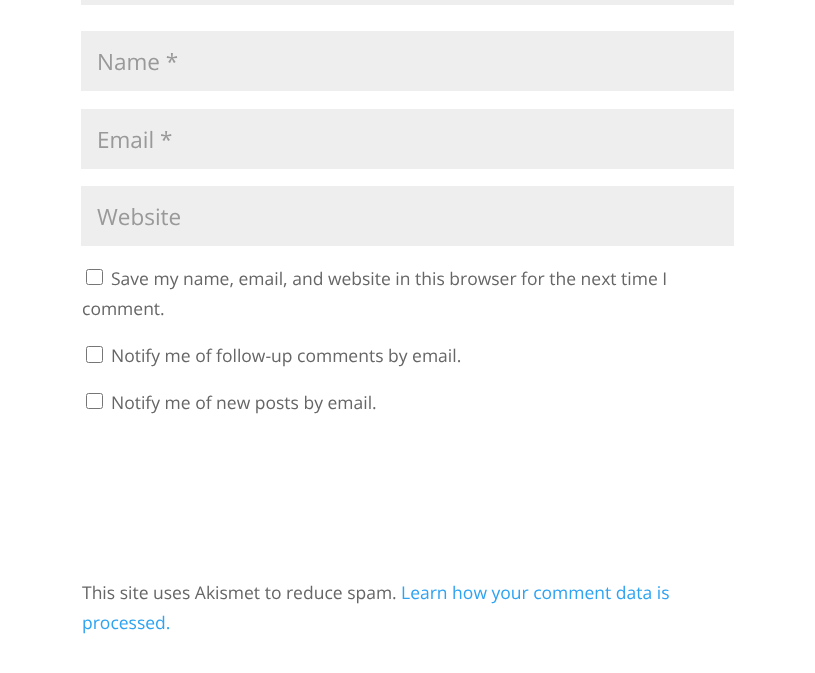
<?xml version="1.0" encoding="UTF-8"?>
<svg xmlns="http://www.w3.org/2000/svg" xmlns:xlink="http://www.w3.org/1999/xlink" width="815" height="673">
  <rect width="100%" height="100%" fill="#ffffff" />
  <rect x="81" width="653" height="5" fill="#eeeeee" />
  <rect x="81" y="31" width="653" height="60" fill="#eeeeee" />
  <rect x="81" y="109" width="653" height="60" fill="#eeeeee" />
  <rect x="81" y="186" width="653" height="60" fill="#eeeeee" />
  <rect x="86.5" y="269.5" width="16" height="15" rx="2" fill="none" stroke="#767676" />
  <rect x="86.5" y="346.5" width="16" height="16" rx="2" fill="none" stroke="#767676" />
  <rect x="86.5" y="393.5" width="16" height="15" rx="2" fill="none" stroke="#767676" />
  <text x="97" y="70" style="font-family: Open Sans; font-size: 22.5px; fill: #999999">Name *</text>
  <text x="97" y="148" style="font-family: Open Sans; font-size: 22.5px; fill: #999999">Email *</text>
  <text x="97" y="225" style="font-family: Open Sans; font-size: 22.5px; fill: #999999">Website</text>
  <text x="111" y="285" style="font-family: Open Sans; font-size: 17.5px; fill: #666666">Save my name, email, and website in this browser for the next time I</text>
  <text x="82" y="315" style="font-family: Open Sans; font-size: 17.5px; fill: #666666">comment.</text>
  <text x="111" y="362" style="font-family: Open Sans; font-size: 17.5px; fill: #666666">Notify me of follow-up comments by email.</text>
  <text x="111" y="409" style="font-family: Open Sans; font-size: 17.5px; fill: #666666">Notify me of new posts by email.</text>
  <text x="82" y="599" style="font-family: Open Sans; font-size: 17.5px; fill: #666666">This site uses Akismet to reduce spam.</text>
  <text x="401" y="599" style="font-family: Open Sans; font-size: 17.5px; fill: #2ea3f2">Learn how your comment data is</text>
  <text x="82" y="629" style="font-family: Open Sans; font-size: 17.5px; fill: #2ea3f2">processed.</text>
</svg>
